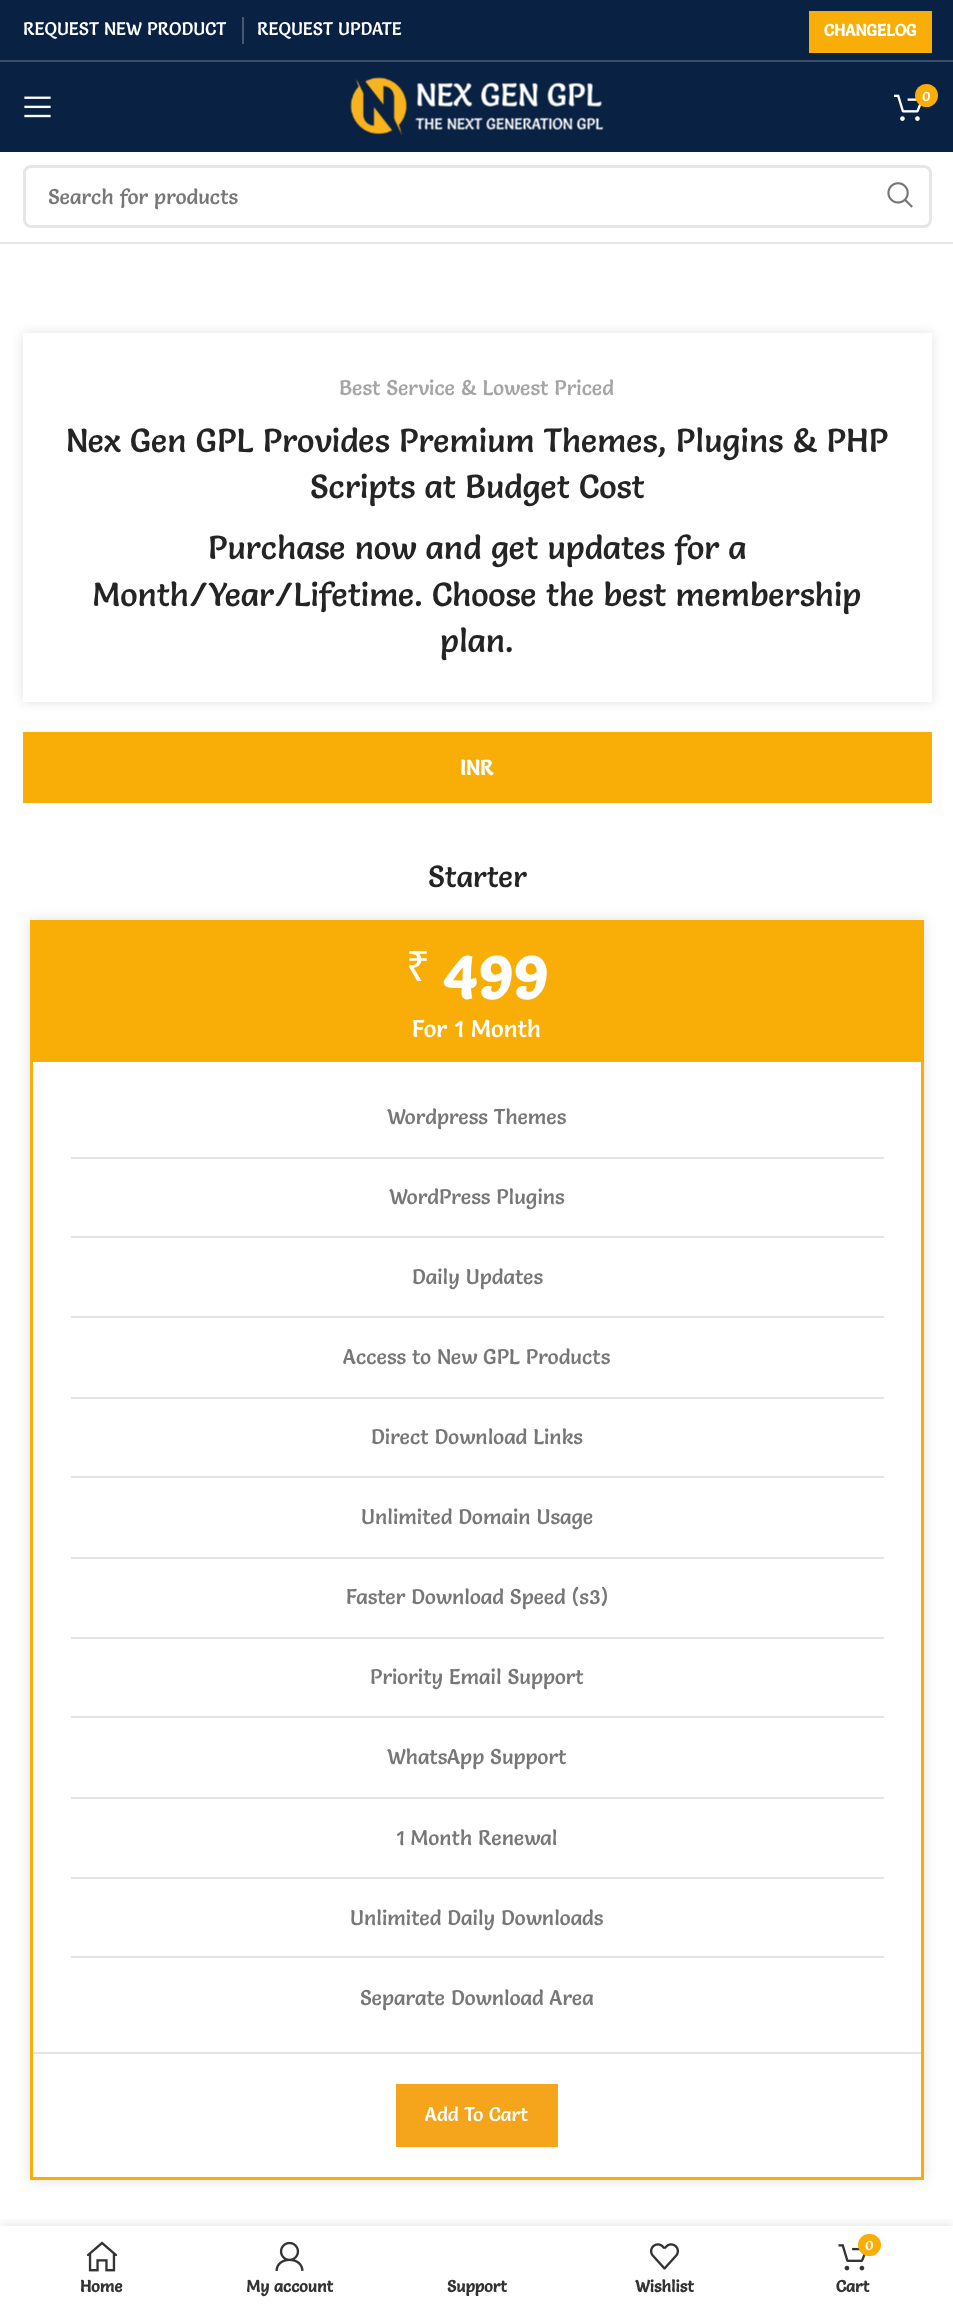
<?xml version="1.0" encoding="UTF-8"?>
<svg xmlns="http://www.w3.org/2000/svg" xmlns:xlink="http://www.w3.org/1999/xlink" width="953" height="2308">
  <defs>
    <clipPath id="clip1"><path d="M 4 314 h 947 v 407 h -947 z m 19 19 h 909 v 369 h -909 z" clip-rule="evenodd" /></clipPath>
    <clipPath id="clip2"><rect x="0" y="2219" width="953" height="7" /></clipPath>
  </defs>
  <rect width="100%" height="100%" fill="#ffffff" />
  <rect width="953" height="60" fill="#092143" />
  <rect y="60" width="953" height="2" fill="#3a4d69" />
  <rect x="242" y="17" width="2" height="27" fill="#475972" />
  <rect x="809" y="11" width="123" height="42" fill="#f9ad07" />
  <rect y="62" width="953" height="90" fill="#092143" />
  <image x="24" y="96" width="27" height="22" xlink:href="image1.png" />
  <image x="350" y="77" width="254" height="58" xlink:href="image2.png" />
  <image x="894" y="94" width="28" height="27" xlink:href="image3.png" />
  <circle cx="926.5" cy="95.5" r="11.5" fill="#f9ad07" />
  <rect y="242" width="953" height="2" fill="#e6e6e6" />
  <rect x="24.5" y="166.5" width="906" height="60" rx="6.5" fill="none" stroke="#e6e6e6" stroke-width="3" />
  <image x="887" y="182" width="26" height="26" xlink:href="image4.png" />
  <g clip-path="url(#clip1)">
    <rect x="23" y="333" width="909" height="369" fill="#000000" fill-opacity="0.12" filter="blur(6px)" />
  </g>
  <rect x="23" y="732" width="909" height="71" fill="#f9ad07" />
  <rect x="30" y="920" width="894" height="1260" fill="#000000" fill-opacity="0.12" filter="blur(7px)" />
  <rect x="33" y="1062" width="888" height="1115" fill="#ffffff" />
  <rect x="31.5" y="921.5" width="891" height="1257" fill="none" stroke="#f9ad07" stroke-width="3" />
  <rect x="33" y="923" width="888" height="139" fill="#f9ad07" />
  <rect x="33" y="2052" width="888" height="2" fill="#e4e4e4" />
  <rect x="71" y="1157" width="813" height="2" fill="#e4e4e4" />
  <rect x="71" y="1236" width="813" height="2" fill="#e4e4e4" />
  <rect x="71" y="1316" width="813" height="2" fill="#e4e4e4" />
  <rect x="71" y="1397" width="813" height="2" fill="#e4e4e4" />
  <rect x="71" y="1476" width="813" height="2" fill="#e4e4e4" />
  <rect x="71" y="1557" width="813" height="2" fill="#e4e4e4" />
  <rect x="71" y="1637" width="813" height="2" fill="#e4e4e4" />
  <rect x="71" y="1716" width="813" height="2" fill="#e4e4e4" />
  <rect x="71" y="1797" width="813" height="2" fill="#e4e4e4" />
  <rect x="71" y="1877" width="813" height="2" fill="#e4e4e4" />
  <rect x="71" y="1956" width="813" height="2" fill="#e4e4e4" />
  <rect x="396" y="2084" width="162" height="63" fill="#f4a51c" />
  <g clip-path="url(#clip2)">
    <rect y="2226" width="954" height="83" fill="#000000" fill-opacity="0.12" filter="blur(7px)" />
  </g>
  <image x="87" y="2241" width="30" height="31" xlink:href="image5.png" />
  <image x="275" y="2241" width="29" height="30" xlink:href="image6.png" />
  <image x="650" y="2243" width="29" height="27" xlink:href="image7.png" />
  <image x="838" y="2244" width="28" height="27" xlink:href="image8.png" />
  <rect x="858" y="2234" width="23" height="22" rx="11" fill="#f9ad07" />
  <text x="23" y="35" style="font-family: Salsa; font-size: 18px; fill: #ffffff">REQUEST NEW PRODUCT</text>
  <text x="257" y="35" style="font-family: Salsa; font-size: 18px; fill: #ffffff">REQUEST UPDATE</text>
  <text x="824" y="36" style="font-family: Salsa; font-size: 16.5px; font-weight: bold; fill: #ffffff">CHANGELOG</text>
  <text x="922" y="101" style="font-family: Salsa; font-size: 14px; fill: #ffffff">0</text>
  <text x="48" y="204" style="font-family: Salsa; font-size: 21px; fill: #777777">Search for products</text>
  <text x="339" y="395" style="font-family: Salsa; font-size: 21px; fill: #a5a5a5">Best Service &amp; Lowest Priced</text>
  <text x="66" y="452" style="font-family: Salsa; font-size: 33px; fill: #242424">Nex Gen GPL Provides Premium Themes, Plugins &amp; PHP</text>
  <text x="310" y="498" style="font-family: Salsa; font-size: 33px; fill: #242424">Scripts at Budget Cost</text>
  <text x="208" y="559" style="font-family: Salsa; font-size: 33px; fill: #242424">Purchase now and get updates for a</text>
  <text x="92" y="606" style="font-family: Salsa; font-size: 33px; fill: #242424">Month/Year/Lifetime. Choose the best membership</text>
  <text x="440" y="652" style="font-family: Salsa; font-size: 33px; fill: #242424">plan.</text>
  <text x="460" y="775" style="font-family: Salsa; font-size: 21px; font-weight: bold; fill: #ffffff">INR</text>
  <text x="428" y="887" style="font-family: Salsa; font-size: 30px; fill: #242424">Starter</text>
  <text x="406" y="981" style="font-family: Noto Sans; font-size: 42px; fill: #ffffff">₹</text>
  <text x="442" y="999" style="font-family: Salsa; font-size: 63px; font-weight: bold; fill: #ffffff">499</text>
  <text x="412" y="1037" style="font-family: Salsa; font-size: 24px; fill: #ffffff">For 1 Month</text>
  <text x="387" y="1124" style="font-family: Salsa; font-size: 21px; fill: #777777">Wordpress Themes</text>
  <text x="389" y="1204" style="font-family: Salsa; font-size: 21px; fill: #777777">WordPress Plugins</text>
  <text x="412" y="1284" style="font-family: Salsa; font-size: 21px; fill: #777777">Daily Updates</text>
  <text x="343" y="1364" style="font-family: Salsa; font-size: 21px; fill: #777777">Access to New GPL Products</text>
  <text x="371" y="1444" style="font-family: Salsa; font-size: 21px; fill: #777777">Direct Download Links</text>
  <text x="361" y="1524" style="font-family: Salsa; font-size: 21px; fill: #777777">Unlimited Domain Usage</text>
  <text x="346" y="1604" style="font-family: Salsa; font-size: 21px; fill: #777777">Faster Download Speed (s3)</text>
  <text x="370" y="1684" style="font-family: Salsa; font-size: 21px; fill: #777777">Priority Email Support</text>
  <text x="387" y="1764" style="font-family: Salsa; font-size: 21px; fill: #777777">WhatsApp Support</text>
  <text x="396" y="1845" style="font-family: Salsa; font-size: 21px; fill: #777777">1 Month Renewal</text>
  <text x="350" y="1925" style="font-family: Salsa; font-size: 21px; fill: #777777">Unlimited Daily Downloads</text>
  <text x="360" y="2005" style="font-family: Salsa; font-size: 21px; fill: #777777">Separate Download Area</text>
  <text x="425" y="2121" style="font-family: Salsa; font-size: 19.5px; fill: #ffffff">Add To Cart</text>
  <text x="80" y="2292" style="font-family: Salsa; font-size: 16.5px; font-weight: bold; fill: #333333">Home</text>
  <text x="246" y="2292" style="font-family: Salsa; font-size: 16.5px; font-weight: bold; fill: #333333">My account</text>
  <text x="447" y="2292" style="font-family: Salsa; font-size: 16.5px; font-weight: bold; fill: #333333">Support</text>
  <text x="635" y="2292" style="font-family: Salsa; font-size: 16.5px; font-weight: bold; fill: #333333">Wishlist</text>
  <text x="865" y="2250" style="font-family: Salsa; font-size: 14px; fill: #ffffff">0</text>
  <text x="836" y="2292" style="font-family: Salsa; font-size: 16.5px; font-weight: bold; fill: #333333">Cart</text>
</svg>
